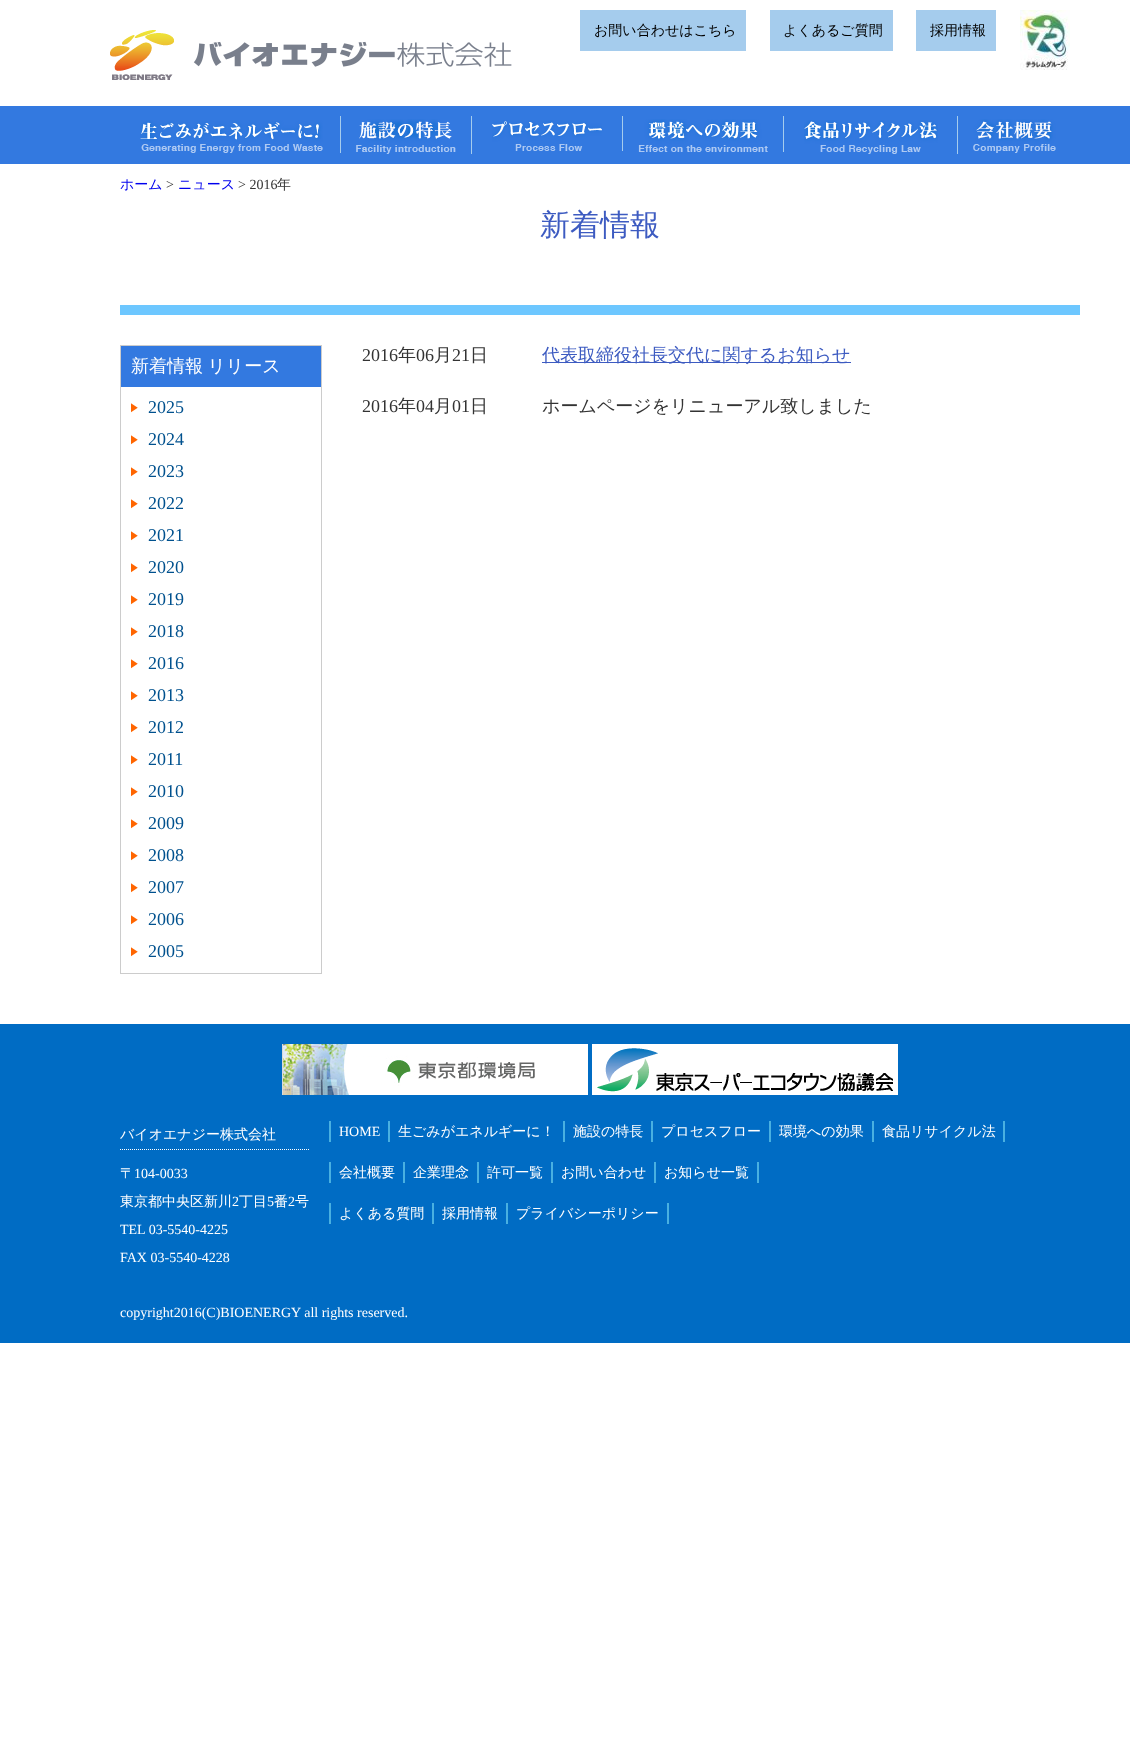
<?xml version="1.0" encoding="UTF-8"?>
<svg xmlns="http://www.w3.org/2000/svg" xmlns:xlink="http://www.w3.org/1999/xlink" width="1130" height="1752">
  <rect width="100%" height="100%" fill="#ffffff" />
  <image x="110" y="30" width="402" height="50" xlink:href="image1.png" />
  <rect x="580" y="10" width="166" height="41" fill="#a5cced" />
  <rect x="770" y="10" width="123" height="41" fill="#a5cced" />
  <rect x="916" y="10" width="80" height="41" fill="#a5cced" />
  <image x="1020" y="10" width="50" height="60" xlink:href="image2.png" />
  <rect y="106" width="1130" height="58" fill="#3379e0" />
  <image x="140" y="120" width="183" height="33" xlink:href="image3.png" />
  <rect x="340" y="116" width="1" height="37" fill="#a5cced" />
  <image x="356" y="119" width="100" height="35" xlink:href="image4.png" />
  <rect x="471" y="116" width="1" height="38" fill="#a5cced" />
  <image x="492" y="120" width="110" height="31" xlink:href="image5.png" />
  <rect x="622" y="116" width="1" height="35" fill="#a5cced" />
  <image x="638" y="119" width="130" height="33" xlink:href="image6.png" />
  <rect x="783" y="116" width="1" height="36" fill="#a5cced" />
  <image x="804" y="120" width="134" height="34" xlink:href="image7.png" />
  <rect x="957" y="116" width="1" height="38" fill="#a5cced" />
  <image x="973" y="119" width="83" height="34" xlink:href="image8.png" />
  <rect x="120" y="305" width="960" height="10" fill="#6dc7ff" />
  <rect x="120.5" y="345.5" width="201" height="628" fill="none" stroke="#cccccc" />
  <rect x="121" y="346" width="200" height="41" fill="#3379e0" />
  <image x="131" y="403" width="7" height="10" xlink:href="image9.png" />
  <image x="131" y="435" width="7" height="10" xlink:href="image9.png" />
  <image x="131" y="467" width="7" height="10" xlink:href="image9.png" />
  <image x="131" y="499" width="7" height="10" xlink:href="image9.png" />
  <image x="131" y="531" width="7" height="10" xlink:href="image9.png" />
  <image x="131" y="563" width="7" height="10" xlink:href="image9.png" />
  <image x="131" y="595" width="7" height="10" xlink:href="image9.png" />
  <image x="131" y="627" width="7" height="10" xlink:href="image9.png" />
  <image x="131" y="659" width="7" height="10" xlink:href="image9.png" />
  <image x="131" y="691" width="7" height="10" xlink:href="image9.png" />
  <image x="131" y="723" width="7" height="10" xlink:href="image9.png" />
  <image x="131" y="755" width="7" height="10" xlink:href="image9.png" />
  <image x="131" y="787" width="7" height="10" xlink:href="image9.png" />
  <image x="131" y="819" width="7" height="10" xlink:href="image9.png" />
  <image x="131" y="851" width="7" height="10" xlink:href="image9.png" />
  <image x="131" y="883" width="7" height="10" xlink:href="image9.png" />
  <image x="131" y="915" width="7" height="10" xlink:href="image9.png" />
  <image x="131" y="947" width="7" height="10" xlink:href="image9.png" />
  <rect x="542" y="362" width="309" height="1" fill="#3d5bc1" />
  <rect y="1024" width="1130" height="319" fill="#006cc4" />
  <image x="282" y="1044" width="306" height="51" xlink:href="image10.png" />
  <image x="592" y="1044" width="306" height="51" xlink:href="image11.png" />
  <path d="M 120 1149.5 h 189" fill="none" stroke="#ffffff" stroke-dasharray="1 1" />
  <rect x="329" y="1121" width="2" height="21" fill="#49b0e1" />
  <rect x="388" y="1121" width="2" height="21" fill="#49b0e1" />
  <rect x="563" y="1121" width="2" height="21" fill="#49b0e1" />
  <rect x="651" y="1121" width="2" height="21" fill="#49b0e1" />
  <rect x="769" y="1121" width="2" height="21" fill="#49b0e1" />
  <rect x="1003" y="1121" width="2" height="21" fill="#49b0e1" />
  <rect x="872" y="1121" width="2" height="21" fill="#49b0e1" />
  <rect x="329" y="1162" width="2" height="21" fill="#49b0e1" />
  <rect x="403" y="1162" width="2" height="21" fill="#49b0e1" />
  <rect x="477" y="1162" width="2" height="21" fill="#49b0e1" />
  <rect x="551" y="1162" width="2" height="21" fill="#49b0e1" />
  <rect x="757" y="1162" width="2" height="21" fill="#49b0e1" />
  <rect x="654" y="1162" width="2" height="21" fill="#49b0e1" />
  <rect x="329" y="1203" width="2" height="21" fill="#49b0e1" />
  <rect x="432" y="1203" width="2" height="21" fill="#49b0e1" />
  <rect x="667" y="1203" width="2" height="21" fill="#49b0e1" />
  <rect x="506" y="1203" width="2" height="21" fill="#49b0e1" />
  <text x="594" y="35" style="font-family: WenQuanYi Zen Hei; font-size: 14px; font-weight: 500; fill: #000000">お問い合わせはこちら</text>
  <text x="783" y="35" style="font-family: WenQuanYi Zen Hei; font-size: 14px; font-weight: 500; fill: #000000">よくあるご質問</text>
  <text x="930" y="35" style="font-family: WenQuanYi Zen Hei; font-size: 14px; font-weight: 500; fill: #000000">採用情報</text>
  <text x="120" y="189" style="font-family: WenQuanYi Zen Hei; font-size: 14px; font-weight: 500; fill: #0000ee">ホーム</text>
  <text x="166" y="189" style="font-family: Liberation Serif; font-size: 14px; fill: #333333">&gt;</text>
  <text x="178" y="189" style="font-family: WenQuanYi Zen Hei; font-size: 14px; font-weight: 500; fill: #0000ee">ニュース</text>
  <text x="238" y="189" style="font-family: Liberation Serif; font-size: 14px; fill: #333333">&gt; 2016</text>
  <text x="277" y="189" style="font-family: WenQuanYi Zen Hei; font-size: 14px; font-weight: 500; fill: #333333">年</text>
  <text x="540" y="235" style="font-family: WenQuanYi Zen Hei; font-size: 30px; font-weight: 500; fill: #3d5bc1">新着情報</text>
  <text x="131" y="372" word-spacing="-1" style="font-family: WenQuanYi Zen Hei; font-size: 18px; font-weight: 500; fill: #ffffff">新着情報 リリース</text>
  <text x="148" y="413" style="font-family: Liberation Serif; font-size: 18px; fill: #00518e">2025</text>
  <text x="148" y="445" style="font-family: Liberation Serif; font-size: 18px; fill: #00518e">2024</text>
  <text x="148" y="477" style="font-family: Liberation Serif; font-size: 18px; fill: #00518e">2023</text>
  <text x="148" y="509" style="font-family: Liberation Serif; font-size: 18px; fill: #00518e">2022</text>
  <text x="148" y="541" style="font-family: Liberation Serif; font-size: 18px; fill: #00518e">2021</text>
  <text x="148" y="573" style="font-family: Liberation Serif; font-size: 18px; fill: #00518e">2020</text>
  <text x="148" y="605" style="font-family: Liberation Serif; font-size: 18px; fill: #00518e">2019</text>
  <text x="148" y="637" style="font-family: Liberation Serif; font-size: 18px; fill: #00518e">2018</text>
  <text x="148" y="669" style="font-family: Liberation Serif; font-size: 18px; fill: #00518e">2016</text>
  <text x="148" y="701" style="font-family: Liberation Serif; font-size: 18px; fill: #00518e">2013</text>
  <text x="148" y="733" style="font-family: Liberation Serif; font-size: 18px; fill: #00518e">2012</text>
  <text x="148" y="765" style="font-family: Liberation Serif; font-size: 18px; fill: #00518e">2011</text>
  <text x="148" y="797" style="font-family: Liberation Serif; font-size: 18px; fill: #00518e">2010</text>
  <text x="148" y="829" style="font-family: Liberation Serif; font-size: 18px; fill: #00518e">2009</text>
  <text x="148" y="861" style="font-family: Liberation Serif; font-size: 18px; fill: #00518e">2008</text>
  <text x="148" y="893" style="font-family: Liberation Serif; font-size: 18px; fill: #00518e">2007</text>
  <text x="148" y="925" style="font-family: Liberation Serif; font-size: 18px; fill: #00518e">2006</text>
  <text x="148" y="957" style="font-family: Liberation Serif; font-size: 18px; fill: #00518e">2005</text>
  <text x="362" y="361" style="font-family: Liberation Serif; font-size: 18px; fill: #333333">2016</text>
  <text x="398" y="361" style="font-family: WenQuanYi Zen Hei; font-size: 18px; font-weight: 500; fill: #333333">年</text>
  <text x="416" y="361" style="font-family: Liberation Serif; font-size: 18px; fill: #333333">06</text>
  <text x="434" y="361" style="font-family: WenQuanYi Zen Hei; font-size: 18px; font-weight: 500; fill: #333333">月</text>
  <text x="452" y="361" style="font-family: Liberation Serif; font-size: 18px; fill: #333333">21</text>
  <text x="470" y="361" style="font-family: WenQuanYi Zen Hei; font-size: 18px; font-weight: 500; fill: #333333">日</text>
  <text x="542" y="361" style="font-family: WenQuanYi Zen Hei; font-size: 18px; font-weight: 500; fill: #3d5bc1">代表取締役社長交代に関するお知らせ</text>
  <text x="362" y="412" style="font-family: Liberation Serif; font-size: 18px; fill: #333333">2016</text>
  <text x="398" y="412" style="font-family: WenQuanYi Zen Hei; font-size: 18px; font-weight: 500; fill: #333333">年</text>
  <text x="416" y="412" style="font-family: Liberation Serif; font-size: 18px; fill: #333333">04</text>
  <text x="434" y="412" style="font-family: WenQuanYi Zen Hei; font-size: 18px; font-weight: 500; fill: #333333">月</text>
  <text x="452" y="412" style="font-family: Liberation Serif; font-size: 18px; fill: #333333">01</text>
  <text x="470" y="412" style="font-family: WenQuanYi Zen Hei; font-size: 18px; font-weight: 500; fill: #333333">日</text>
  <text x="542" y="412" style="font-family: WenQuanYi Zen Hei; font-size: 18px; font-weight: 500; fill: #333333">ホームページをリニューアル致しました</text>
  <text x="120" y="1139" style="font-family: WenQuanYi Zen Hei; font-size: 14px; font-weight: 500; fill: #ffffff">バイオエナジー株式会社</text>
  <text x="120" y="1178" style="font-family: WenQuanYi Zen Hei; font-size: 14px; font-weight: 500; fill: #ffffff">〒</text>
  <text x="134" y="1178" style="font-family: Liberation Serif; font-size: 14px; fill: #ffffff">104-0033</text>
  <text x="120" y="1206" style="font-family: WenQuanYi Zen Hei; font-size: 14px; font-weight: 500; fill: #ffffff">東京都中央区新川</text>
  <text x="232" y="1206" style="font-family: Liberation Serif; font-size: 14px; fill: #ffffff">2</text>
  <text x="239" y="1206" style="font-family: WenQuanYi Zen Hei; font-size: 14px; font-weight: 500; fill: #ffffff">丁目</text>
  <text x="267" y="1206" style="font-family: Liberation Serif; font-size: 14px; fill: #ffffff">5</text>
  <text x="274" y="1206" style="font-family: WenQuanYi Zen Hei; font-size: 14px; font-weight: 500; fill: #ffffff">番</text>
  <text x="288" y="1206" style="font-family: Liberation Serif; font-size: 14px; fill: #ffffff">2</text>
  <text x="295" y="1206" style="font-family: WenQuanYi Zen Hei; font-size: 14px; font-weight: 500; fill: #ffffff">号</text>
  <text x="120" y="1234" style="font-family: Liberation Serif; font-size: 14px; fill: #ffffff">TEL 03-5540-4225</text>
  <text x="120" y="1262" style="font-family: Liberation Serif; font-size: 14px; fill: #ffffff">FAX 03-5540-4228</text>
  <text x="339" y="1136" style="font-family: Liberation Serif; font-size: 14px; fill: #ffffff">HOME</text>
  <text x="398" y="1136" style="font-family: WenQuanYi Zen Hei; font-size: 14px; font-weight: 500; fill: #ffffff">生ごみがエネルギーに！</text>
  <text x="573" y="1136" style="font-family: WenQuanYi Zen Hei; font-size: 14px; font-weight: 500; fill: #ffffff">施設の特長</text>
  <text x="661" y="1136" style="font-family: WenQuanYi Zen Hei; font-size: 14px; font-weight: 500; fill: #ffffff">プロセスフロー</text>
  <text x="779" y="1136" style="font-family: WenQuanYi Zen Hei; font-size: 14px; font-weight: 500; fill: #ffffff">環境への効果</text>
  <text x="882" y="1136" style="font-family: WenQuanYi Zen Hei; font-size: 14px; font-weight: 500; fill: #ffffff">食品リサイクル法</text>
  <text x="339" y="1177" style="font-family: WenQuanYi Zen Hei; font-size: 14px; font-weight: 500; fill: #ffffff">会社概要</text>
  <text x="413" y="1177" style="font-family: WenQuanYi Zen Hei; font-size: 14px; font-weight: 500; fill: #ffffff">企業理念</text>
  <text x="487" y="1177" style="font-family: WenQuanYi Zen Hei; font-size: 14px; font-weight: 500; fill: #ffffff">許可一覧</text>
  <text x="561" y="1177" style="font-family: WenQuanYi Zen Hei; font-size: 14px; font-weight: 500; fill: #ffffff">お問い合わせ</text>
  <text x="664" y="1177" style="font-family: WenQuanYi Zen Hei; font-size: 14px; font-weight: 500; fill: #ffffff">お知らせ一覧</text>
  <text x="339" y="1218" style="font-family: WenQuanYi Zen Hei; font-size: 14px; font-weight: 500; fill: #ffffff">よくある質問</text>
  <text x="442" y="1218" style="font-family: WenQuanYi Zen Hei; font-size: 14px; font-weight: 500; fill: #ffffff">採用情報</text>
  <text x="516" y="1218" style="font-family: WenQuanYi Zen Hei; font-size: 14px; font-weight: 500; fill: #ffffff">プライバシーポリシー</text>
  <text x="120" y="1317" style="font-family: Liberation Serif; font-size: 14px; fill: #ffffff">copyright2016(C)BIOENERGY all rights reserved.</text>
</svg>
